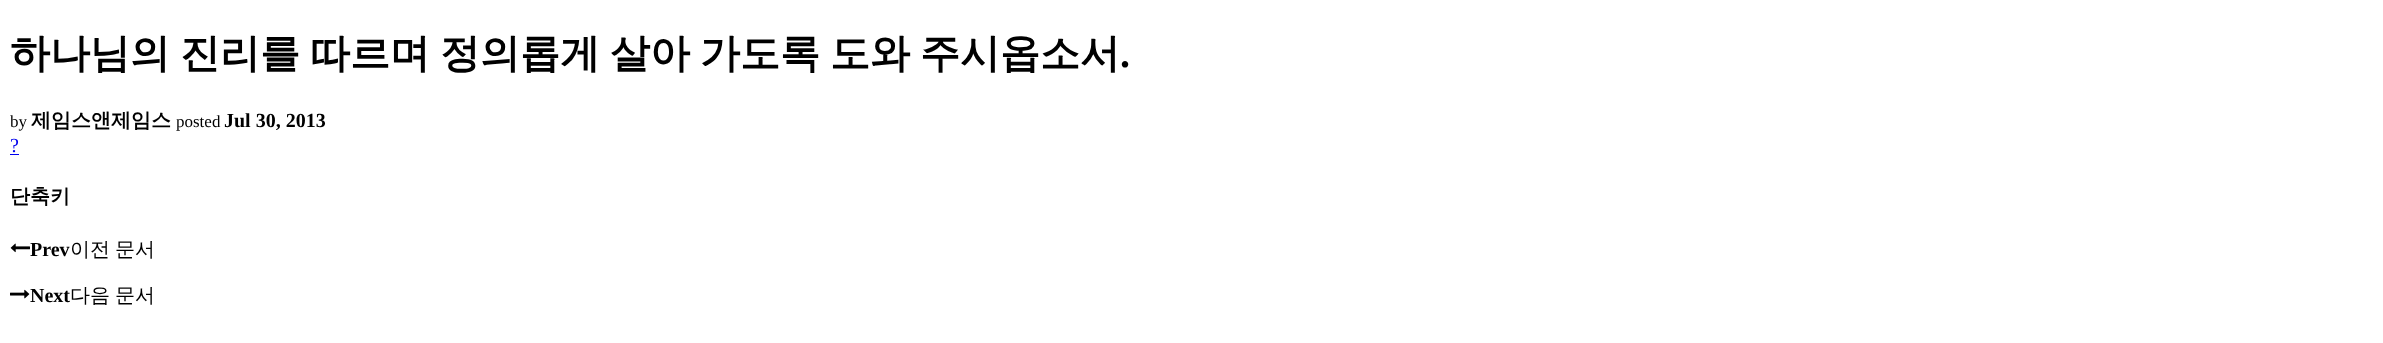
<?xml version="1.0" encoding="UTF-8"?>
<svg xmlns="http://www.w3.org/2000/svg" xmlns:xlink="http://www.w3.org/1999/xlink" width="2383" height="343">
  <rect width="100%" height="100%" fill="#ffffff" />
  <rect x="10" y="154" width="9" height="1" fill="#0000ee" />
  <image x="10" y="243" width="20" height="10" xlink:href="image1.png" />
  <image x="10" y="289" width="20" height="10" xlink:href="image2.png" />
  <text x="10" y="67" word-spacing="-2" style="font-family: WenQuanYi Zen Hei; font-size: 40px; font-weight: bold; fill: #000000">하나님의 진리를 따르며 정의롭게 살아 가도록 도와 주시옵소서</text>
  <text x="1120" y="67" style="font-family: Liberation Serif; font-size: 40px; font-weight: bold; fill: #000000">.</text>
  <text x="10" y="127" style="font-family: Liberation Serif; font-size: 17px; fill: #000000">by</text>
  <text x="31" y="127" style="font-family: WenQuanYi Zen Hei; font-size: 20px; font-weight: bold; fill: #000000">제임스앤제임스</text>
  <text x="176" y="127" style="font-family: Liberation Serif; font-size: 17px; fill: #000000">posted</text>
  <text x="224" y="127" style="font-family: Liberation Serif; font-size: 20px; font-weight: bold; fill: #000000">Jul 30, 2013</text>
  <text x="10" y="152" style="font-family: Liberation Serif; font-size: 20px; fill: #0000ee">?</text>
  <text x="10" y="203" style="font-family: WenQuanYi Zen Hei; font-size: 20px; font-weight: bold; fill: #000000">단축키</text>
  <text x="30" y="256" style="font-family: Liberation Serif; font-size: 20px; font-weight: bold; fill: #000000">Prev</text>
  <text x="70" y="256" word-spacing="-1" style="font-family: WenQuanYi Zen Hei; font-size: 20px; font-weight: 500; fill: #000000">이전 문서</text>
  <text x="30" y="302" style="font-family: Liberation Serif; font-size: 20px; font-weight: bold; fill: #000000">Next</text>
  <text x="70" y="302" word-spacing="-1" style="font-family: WenQuanYi Zen Hei; font-size: 20px; font-weight: 500; fill: #000000">다음 문서</text>
</svg>
